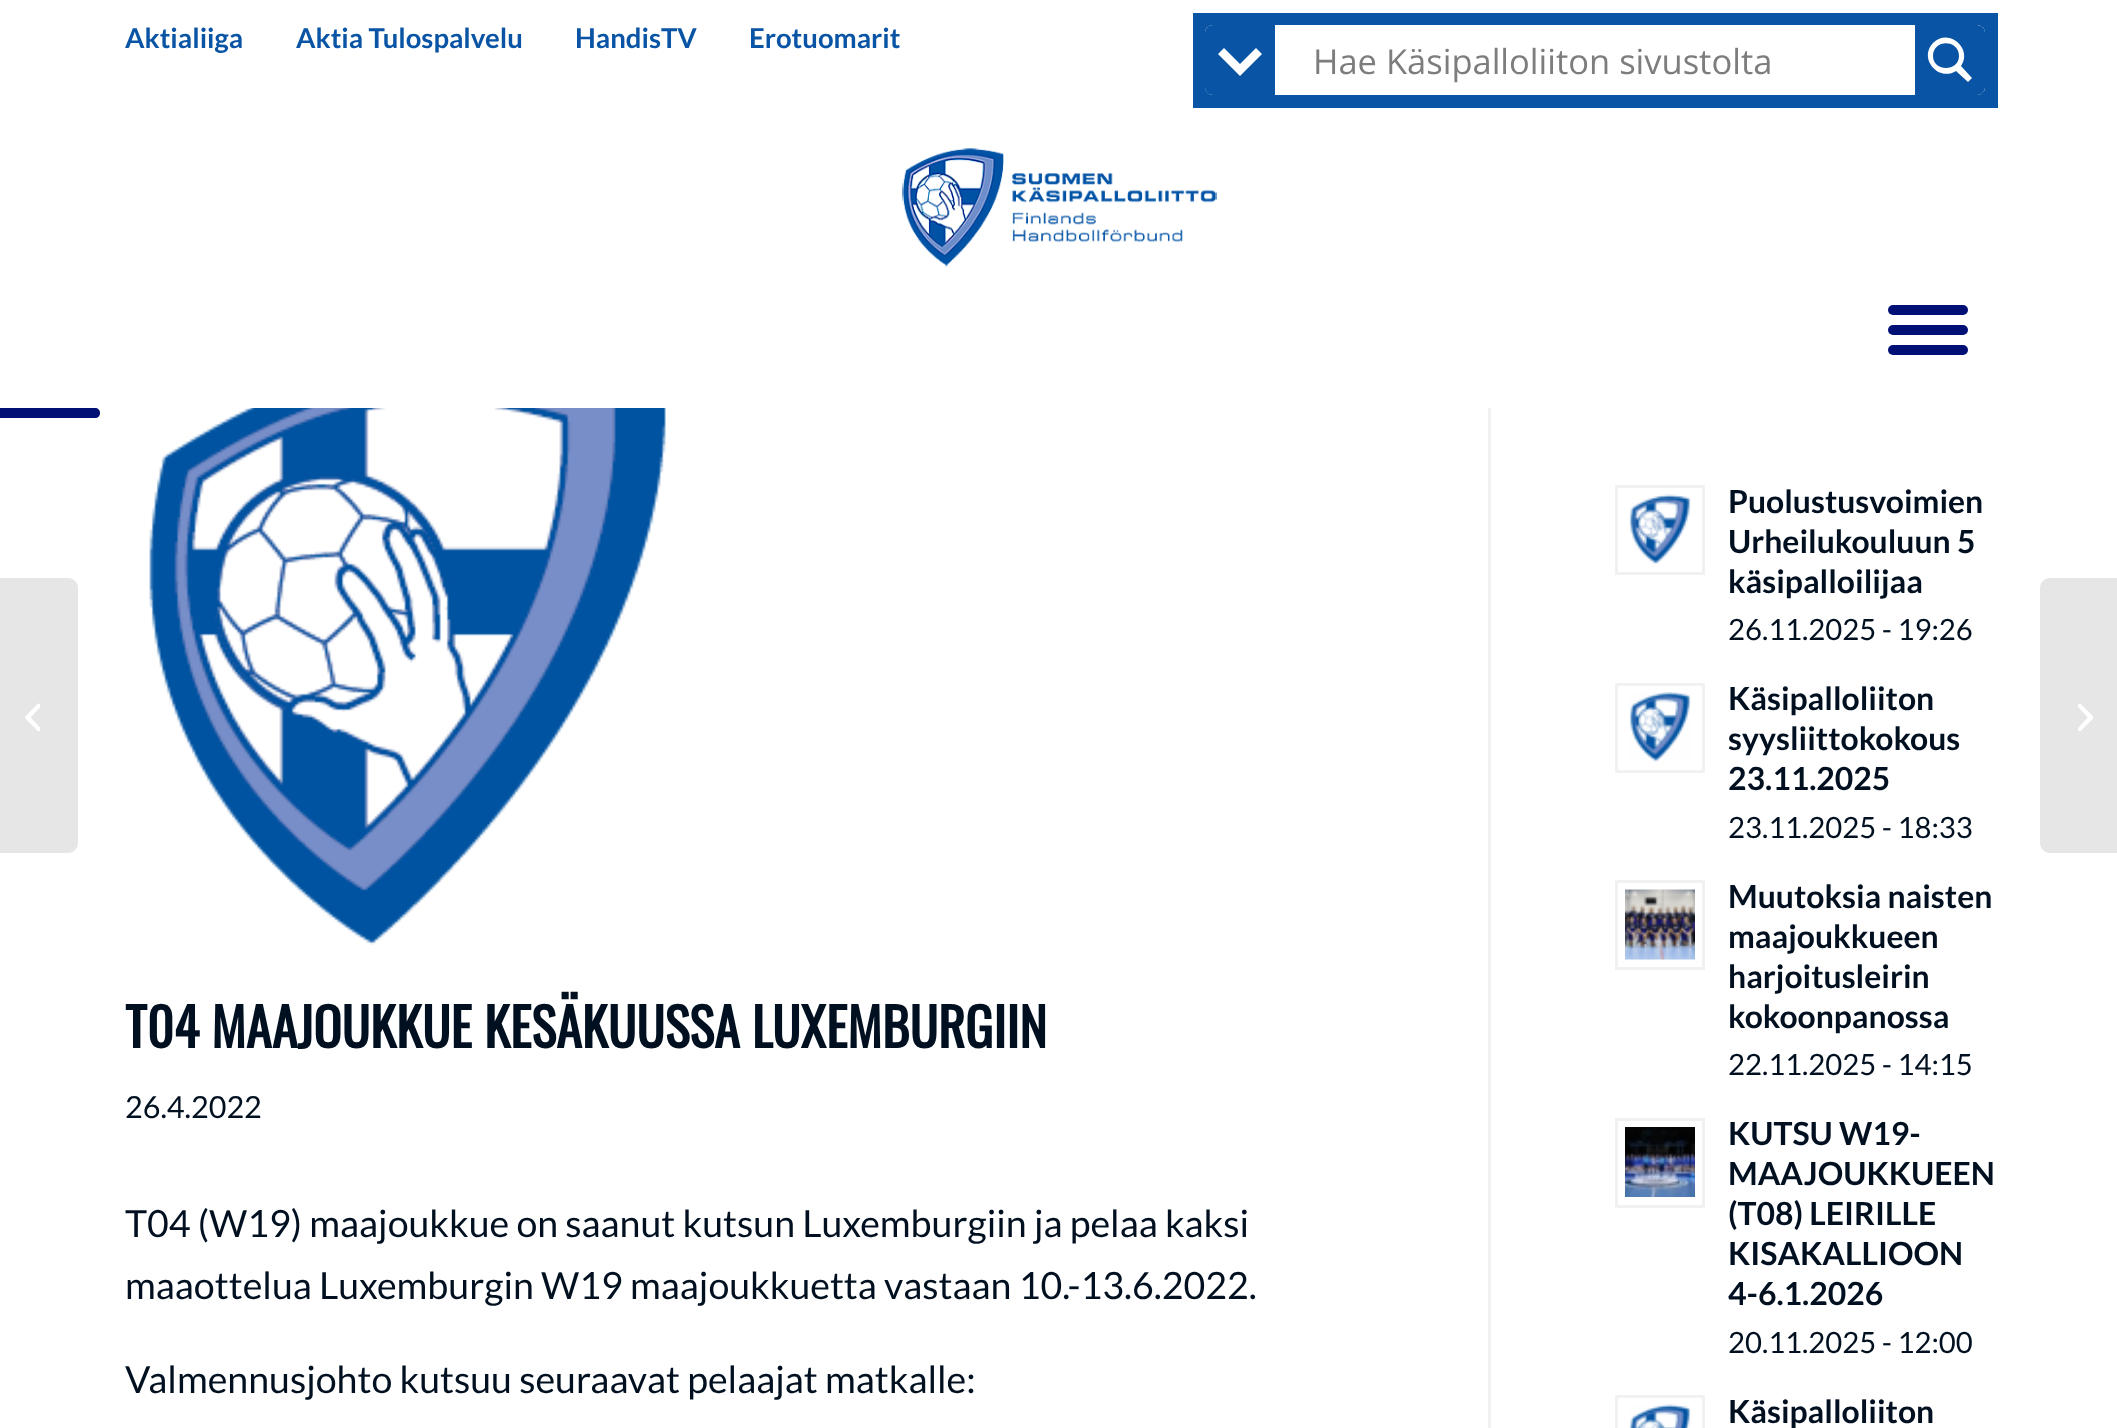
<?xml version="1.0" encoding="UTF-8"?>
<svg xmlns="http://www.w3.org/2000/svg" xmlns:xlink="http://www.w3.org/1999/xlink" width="2117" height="1428">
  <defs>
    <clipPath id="clip1"><rect x="1915" y="25" width="70" height="70" /></clipPath>
  </defs>
  <rect width="100%" height="100%" fill="#ffffff" />
  <rect x="1193" y="13" width="805" height="95" fill="#0954a4" />
  <rect x="1205" y="25" width="780" height="70" rx="8" fill="#ffffff" />
  <path d="M 1213 25 h 62 v 70 h -62 c -4.5 0 -8 -3.5 -8 -8 v -54 c 0 -4.5 3.5 -8 8 -8 z" fill="#0954a4" />
  <path d="M 1256 48 l 6 6 l -22 22 l -22 -22 l 6 -6 l 16 16 z" fill="#ffffff" />
  <g clip-path="url(#clip1)">
    <path d="M 1912 28 v 67 h -244 v -70 h 309 c 4 0 8 4 8 8 v 54 c 0 3 -1 5 -3 6 v -65 z" fill="#ffffff" fill-opacity="0.61" />
  </g>
  <path d="M 1915 25 h 62 c 4.5 0 8 3.5 8 8 v 54 c 0 4.5 -3.5 8 -8 8 h -62 z" fill="#0954a4" />
  <path d="M 1972 78 l -11 -12 c 12 -17 -12 -39 -28 -23 c -15 16 6 39 23 28 l 12 11 z m -39 -22 c 0 -17 26 -17 26 0 c 0 16 -26 16 -26 0 z" fill="#ffffff" />
  <image x="902" y="148" width="315" height="119" xlink:href="image1.png" />
  <rect x="1888" y="305" width="80" height="10" rx="5" fill="#011075" />
  <rect x="1888" y="325" width="80" height="10" rx="5" fill="#011075" />
  <rect x="1888" y="345" width="80" height="10" rx="5" fill="#011075" />
  <path d="M 0 408 h 95 c 3 0 5 2 5 5 c 0 3 -2 5 -5 5 h -95 z" fill="#011075" />
  <path d="M 0 578 h 68 c 5.5 0 10 4.5 10 10 v 255 c 0 5.5 -4.5 10 -10 10 h -68 z" fill="#e6e6e6" />
  <image x="25" y="703" width="15" height="29" xlink:href="image2.png" />
  <rect x="1488" y="408" width="3" height="1020" fill="#f1f1f1" />
  <image x="149" y="408" width="517" height="537" xlink:href="image3.png" />
  <rect x="1616.5" y="486.5" width="87" height="87" fill="none" stroke="#f1f1f1" stroke-width="3" />
  <image x="1629" y="494" width="62" height="71" xlink:href="image4.png" />
  <rect x="1616.5" y="684.5" width="87" height="87" fill="none" stroke="#f1f1f1" stroke-width="3" />
  <image x="1629" y="692" width="62" height="70" xlink:href="image5.png" />
  <rect x="1616.5" y="881.5" width="87" height="87" fill="none" stroke="#f1f1f1" stroke-width="3" />
  <image x="1625" y="889" width="70" height="71" xlink:href="image6.png" />
  <rect x="1616.5" y="1119.5" width="87" height="87" fill="none" stroke="#f1f1f1" stroke-width="3" />
  <image x="1625" y="1127" width="70" height="70" xlink:href="image7.png" />
  <rect x="1616.5" y="1396.5" width="87" height="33" fill="none" stroke="#f1f1f1" stroke-width="3" />
  <image x="1629" y="1404" width="62" height="24" xlink:href="image8.png" />
  <path d="M 2050 578 h 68 v 275 h -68 c -5.5 0 -10 -4.5 -10 -10 v -255 c 0 -5.5 4.5 -10 10 -10 z" fill="#e6e6e6" />
  <image x="2078" y="703" width="15" height="29" xlink:href="image9.png" />
  <text x="125" y="48" style="font-family: Lato; font-size: 27.5px; font-weight: bold; fill: #0954a4">Aktialiiga</text>
  <text x="296" y="48" style="font-family: Lato; font-size: 27.5px; font-weight: bold; fill: #0954a4">Aktia Tulospalvelu</text>
  <text x="575" y="48" style="font-family: Lato; font-size: 27.5px; font-weight: bold; fill: #0954a4">HandisTV</text>
  <text x="749" y="48" style="font-family: Lato; font-size: 27.5px; font-weight: bold; fill: #0954a4">Erotuomarit</text>
  <text x="1313" y="74" style="font-family: Open Sans; font-size: 34.5px; fill: #7d7d7d">Hae Käsipalloliiton sivustolta</text>
  <text x="125" y="1048" style="font-family: Oswald; font-size: 52.5px; font-weight: bold; fill: #001020">T04 MAAJOUKKUE KESÄKUUSSA LUXEMBURGIIN</text>
  <text x="125" y="1118" style="font-family: Lato; font-size: 30.5px; fill: #001020">26.4.2022</text>
  <text x="125" y="1237" style="font-family: Lato; font-size: 37.5px; fill: #001020">T04 (W19) maajoukkue on saanut kutsun Luxemburgiin ja pelaa kaksi</text>
  <text x="125" y="1299" style="font-family: Lato; font-size: 37.5px; fill: #001020">maaottelua Luxemburgin W19 maajoukkuetta vastaan 10.-13.6.2022.</text>
  <text x="125" y="1393" style="font-family: Lato; font-size: 37.5px; fill: #001020">Valmennusjohto kutsuu seuraavat pelaajat matkalle:</text>
  <text x="1728" y="513" style="font-family: Lato; font-size: 31.9px; font-weight: bold; fill: #001020">Puolustusvoimien</text>
  <text x="1728" y="553" style="font-family: Lato; font-size: 31.9px; font-weight: bold; fill: #001020">Urheilukouluun 5</text>
  <text x="1728" y="593" style="font-family: Lato; font-size: 31.9px; font-weight: bold; fill: #001020">käsipalloilijaa</text>
  <text x="1728" y="640" style="font-family: Lato; font-size: 29.25px; fill: #001020">26.11.2025 - 19:26</text>
  <text x="1728" y="710" style="font-family: Lato; font-size: 31.9px; font-weight: bold; fill: #001020">Käsipalloliiton</text>
  <text x="1728" y="750" style="font-family: Lato; font-size: 31.9px; font-weight: bold; fill: #001020">syysliittokokous</text>
  <text x="1728" y="790" style="font-family: Lato; font-size: 31.9px; font-weight: bold; fill: #001020">23.11.2025</text>
  <text x="1728" y="838" style="font-family: Lato; font-size: 29.25px; fill: #001020">23.11.2025 - 18:33</text>
  <text x="1728" y="908" style="font-family: Lato; font-size: 31.9px; font-weight: bold; fill: #001020">Muutoksia naisten</text>
  <text x="1728" y="948" style="font-family: Lato; font-size: 31.9px; font-weight: bold; fill: #001020">maajoukkueen</text>
  <text x="1728" y="988" style="font-family: Lato; font-size: 31.9px; font-weight: bold; fill: #001020">harjoitusleirin</text>
  <text x="1728" y="1028" style="font-family: Lato; font-size: 31.9px; font-weight: bold; fill: #001020">kokoonpanossa</text>
  <text x="1728" y="1075" style="font-family: Lato; font-size: 29.25px; fill: #001020">22.11.2025 - 14:15</text>
  <text x="1728" y="1145" style="font-family: Lato; font-size: 31.9px; font-weight: bold; fill: #001020">KUTSU W19-</text>
  <text x="1728" y="1185" style="font-family: Lato; font-size: 31.9px; font-weight: bold; fill: #001020">MAAJOUKKUEEN</text>
  <text x="1728" y="1225" style="font-family: Lato; font-size: 31.9px; font-weight: bold; fill: #001020">(T08) LEIRILLE</text>
  <text x="1728" y="1265" style="font-family: Lato; font-size: 31.9px; font-weight: bold; fill: #001020">KISAKALLIOON</text>
  <text x="1728" y="1305" style="font-family: Lato; font-size: 31.9px; font-weight: bold; fill: #001020">4-6.1.2026</text>
  <text x="1728" y="1353" style="font-family: Lato; font-size: 29.25px; fill: #001020">20.11.2025 - 12:00</text>
  <text x="1728" y="1423" style="font-family: Lato; font-size: 31.9px; font-weight: bold; fill: #001020">Käsipalloliiton</text>
</svg>
